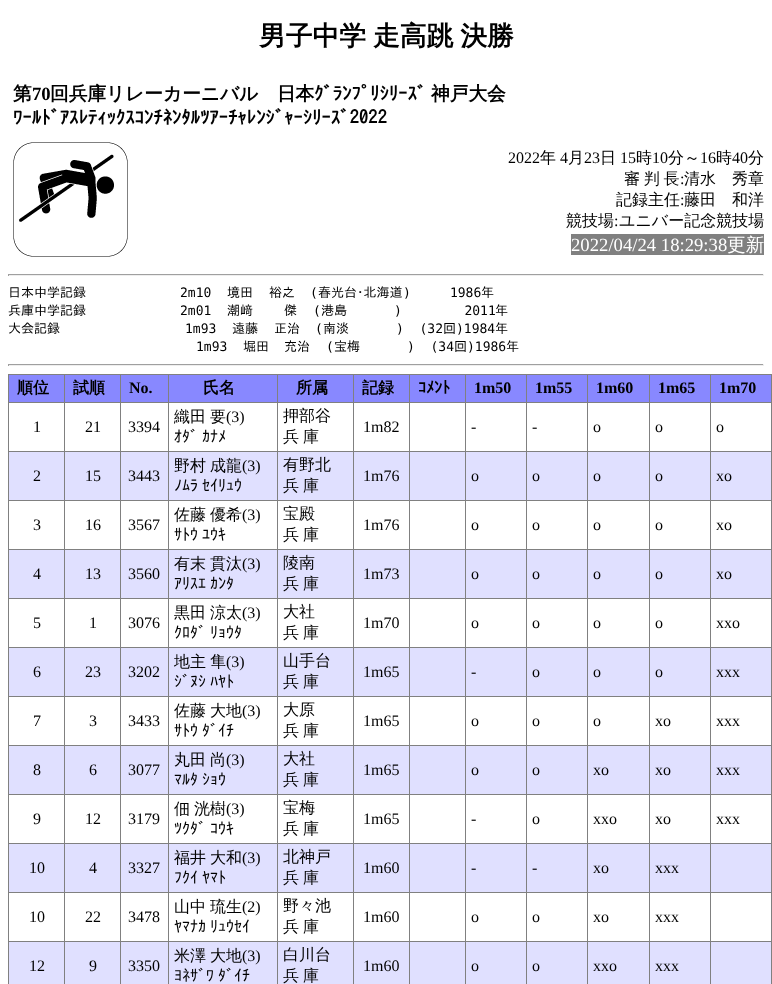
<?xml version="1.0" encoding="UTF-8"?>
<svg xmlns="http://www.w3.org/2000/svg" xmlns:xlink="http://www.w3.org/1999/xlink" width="772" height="984">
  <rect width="100%" height="100%" fill="#ffffff" />
  <image x="13" y="142" width="115" height="115" xlink:href="image1.png" />
  <rect x="571" y="234" width="193" height="21" fill="#808080" />
  <rect x="8" y="274" width="756" height="1" fill="#9f9f9f" />
  <rect x="763" y="274" width="1" height="2" fill="#eeeeee" />
  <rect x="8" y="275" width="756" height="1" fill="#eeeeee" />
  <rect x="8" y="274" width="1" height="2" fill="#9f9f9f" />
  <rect x="8" y="364" width="756" height="1" fill="#9f9f9f" />
  <rect x="763" y="364" width="1" height="2" fill="#eeeeee" />
  <rect x="8" y="365" width="756" height="1" fill="#eeeeee" />
  <rect x="8" y="364" width="1" height="2" fill="#9f9f9f" />
  <rect x="8" y="374" width="764" height="1" fill="#808080" />
  <rect x="8" y="374" width="1" height="610" fill="#808080" />
  <rect x="9" y="375" width="55" height="27" fill="#8888ff" />
  <rect x="9" y="452" width="762" height="48" fill="#e0e0ff" />
  <rect x="771" y="500" width="1" height="484" fill="#808080" />
  <rect x="771" y="374" width="1" height="127" fill="#808080" />
  <rect x="9" y="550" width="762" height="48" fill="#e0e0ff" />
  <rect x="9" y="648" width="762" height="48" fill="#e0e0ff" />
  <rect x="9" y="746" width="762" height="48" fill="#e0e0ff" />
  <rect x="9" y="844" width="762" height="48" fill="#e0e0ff" />
  <rect x="9" y="942" width="762" height="42" fill="#e0e0ff" />
  <rect x="710" y="941" width="1" height="43" fill="#808080" />
  <rect x="710" y="941" width="62" height="1" fill="#808080" />
  <rect x="710" y="892" width="1" height="50" fill="#808080" />
  <rect x="710" y="892" width="62" height="1" fill="#808080" />
  <rect x="710" y="843" width="1" height="50" fill="#808080" />
  <rect x="710" y="843" width="62" height="1" fill="#808080" />
  <rect x="710" y="794" width="1" height="50" fill="#808080" />
  <rect x="710" y="794" width="62" height="1" fill="#808080" />
  <rect x="710" y="745" width="1" height="50" fill="#808080" />
  <rect x="710" y="745" width="62" height="1" fill="#808080" />
  <rect x="710" y="696" width="1" height="50" fill="#808080" />
  <rect x="710" y="696" width="62" height="1" fill="#808080" />
  <rect x="710" y="647" width="1" height="50" fill="#808080" />
  <rect x="710" y="647" width="62" height="1" fill="#808080" />
  <rect x="710" y="598" width="1" height="50" fill="#808080" />
  <rect x="710" y="598" width="62" height="1" fill="#808080" />
  <rect x="710" y="549" width="1" height="50" fill="#808080" />
  <rect x="710" y="549" width="62" height="1" fill="#808080" />
  <rect x="710" y="500" width="1" height="50" fill="#808080" />
  <rect x="710" y="500" width="62" height="1" fill="#808080" />
  <rect x="710" y="451" width="1" height="50" fill="#808080" />
  <rect x="710" y="451" width="62" height="1" fill="#808080" />
  <rect x="710" y="402" width="1" height="50" fill="#808080" />
  <rect x="710" y="402" width="62" height="1" fill="#808080" />
  <rect x="710" y="374" width="1" height="29" fill="#808080" />
  <rect x="649" y="941" width="1" height="43" fill="#808080" />
  <rect x="649" y="941" width="62" height="1" fill="#808080" />
  <rect x="649" y="892" width="1" height="50" fill="#808080" />
  <rect x="649" y="892" width="62" height="1" fill="#808080" />
  <rect x="649" y="843" width="1" height="50" fill="#808080" />
  <rect x="649" y="843" width="62" height="1" fill="#808080" />
  <rect x="649" y="794" width="1" height="50" fill="#808080" />
  <rect x="649" y="794" width="62" height="1" fill="#808080" />
  <rect x="649" y="745" width="1" height="50" fill="#808080" />
  <rect x="649" y="745" width="62" height="1" fill="#808080" />
  <rect x="649" y="696" width="1" height="50" fill="#808080" />
  <rect x="649" y="696" width="62" height="1" fill="#808080" />
  <rect x="649" y="647" width="1" height="50" fill="#808080" />
  <rect x="649" y="647" width="62" height="1" fill="#808080" />
  <rect x="649" y="598" width="1" height="50" fill="#808080" />
  <rect x="649" y="598" width="62" height="1" fill="#808080" />
  <rect x="649" y="549" width="1" height="50" fill="#808080" />
  <rect x="649" y="549" width="62" height="1" fill="#808080" />
  <rect x="649" y="500" width="1" height="50" fill="#808080" />
  <rect x="649" y="500" width="62" height="1" fill="#808080" />
  <rect x="649" y="451" width="1" height="50" fill="#808080" />
  <rect x="649" y="451" width="62" height="1" fill="#808080" />
  <rect x="649" y="402" width="1" height="50" fill="#808080" />
  <rect x="649" y="402" width="62" height="1" fill="#808080" />
  <rect x="649" y="374" width="1" height="29" fill="#808080" />
  <rect x="587" y="941" width="1" height="43" fill="#808080" />
  <rect x="587" y="941" width="63" height="1" fill="#808080" />
  <rect x="587" y="892" width="1" height="50" fill="#808080" />
  <rect x="587" y="892" width="63" height="1" fill="#808080" />
  <rect x="587" y="843" width="1" height="50" fill="#808080" />
  <rect x="587" y="843" width="63" height="1" fill="#808080" />
  <rect x="587" y="794" width="1" height="50" fill="#808080" />
  <rect x="587" y="794" width="63" height="1" fill="#808080" />
  <rect x="587" y="745" width="1" height="50" fill="#808080" />
  <rect x="587" y="745" width="63" height="1" fill="#808080" />
  <rect x="587" y="696" width="1" height="50" fill="#808080" />
  <rect x="587" y="696" width="63" height="1" fill="#808080" />
  <rect x="587" y="647" width="1" height="50" fill="#808080" />
  <rect x="587" y="647" width="63" height="1" fill="#808080" />
  <rect x="587" y="598" width="1" height="50" fill="#808080" />
  <rect x="587" y="598" width="63" height="1" fill="#808080" />
  <rect x="587" y="549" width="1" height="50" fill="#808080" />
  <rect x="587" y="549" width="63" height="1" fill="#808080" />
  <rect x="587" y="500" width="1" height="50" fill="#808080" />
  <rect x="587" y="500" width="63" height="1" fill="#808080" />
  <rect x="587" y="451" width="1" height="50" fill="#808080" />
  <rect x="587" y="451" width="63" height="1" fill="#808080" />
  <rect x="587" y="402" width="1" height="50" fill="#808080" />
  <rect x="587" y="402" width="63" height="1" fill="#808080" />
  <rect x="587" y="374" width="1" height="29" fill="#808080" />
  <rect x="526" y="941" width="1" height="43" fill="#808080" />
  <rect x="526" y="941" width="62" height="1" fill="#808080" />
  <rect x="526" y="892" width="1" height="50" fill="#808080" />
  <rect x="526" y="892" width="62" height="1" fill="#808080" />
  <rect x="526" y="843" width="1" height="50" fill="#808080" />
  <rect x="526" y="843" width="62" height="1" fill="#808080" />
  <rect x="526" y="794" width="1" height="50" fill="#808080" />
  <rect x="526" y="794" width="62" height="1" fill="#808080" />
  <rect x="526" y="745" width="1" height="50" fill="#808080" />
  <rect x="526" y="745" width="62" height="1" fill="#808080" />
  <rect x="526" y="696" width="1" height="50" fill="#808080" />
  <rect x="526" y="696" width="62" height="1" fill="#808080" />
  <rect x="526" y="647" width="1" height="50" fill="#808080" />
  <rect x="526" y="647" width="62" height="1" fill="#808080" />
  <rect x="526" y="598" width="1" height="50" fill="#808080" />
  <rect x="526" y="598" width="62" height="1" fill="#808080" />
  <rect x="526" y="549" width="1" height="50" fill="#808080" />
  <rect x="526" y="549" width="62" height="1" fill="#808080" />
  <rect x="526" y="500" width="1" height="50" fill="#808080" />
  <rect x="526" y="500" width="62" height="1" fill="#808080" />
  <rect x="526" y="451" width="1" height="50" fill="#808080" />
  <rect x="526" y="451" width="62" height="1" fill="#808080" />
  <rect x="526" y="402" width="1" height="50" fill="#808080" />
  <rect x="526" y="402" width="62" height="1" fill="#808080" />
  <rect x="526" y="374" width="1" height="29" fill="#808080" />
  <rect x="465" y="941" width="1" height="43" fill="#808080" />
  <rect x="465" y="941" width="62" height="1" fill="#808080" />
  <rect x="465" y="892" width="1" height="50" fill="#808080" />
  <rect x="465" y="892" width="62" height="1" fill="#808080" />
  <rect x="465" y="843" width="1" height="50" fill="#808080" />
  <rect x="465" y="843" width="62" height="1" fill="#808080" />
  <rect x="465" y="794" width="1" height="50" fill="#808080" />
  <rect x="465" y="794" width="62" height="1" fill="#808080" />
  <rect x="465" y="745" width="1" height="50" fill="#808080" />
  <rect x="465" y="745" width="62" height="1" fill="#808080" />
  <rect x="465" y="696" width="1" height="50" fill="#808080" />
  <rect x="465" y="696" width="62" height="1" fill="#808080" />
  <rect x="465" y="647" width="1" height="50" fill="#808080" />
  <rect x="465" y="647" width="62" height="1" fill="#808080" />
  <rect x="465" y="598" width="1" height="50" fill="#808080" />
  <rect x="465" y="598" width="62" height="1" fill="#808080" />
  <rect x="465" y="549" width="1" height="50" fill="#808080" />
  <rect x="465" y="549" width="62" height="1" fill="#808080" />
  <rect x="465" y="500" width="1" height="50" fill="#808080" />
  <rect x="465" y="500" width="62" height="1" fill="#808080" />
  <rect x="465" y="451" width="1" height="50" fill="#808080" />
  <rect x="465" y="451" width="62" height="1" fill="#808080" />
  <rect x="465" y="402" width="1" height="50" fill="#808080" />
  <rect x="465" y="402" width="62" height="1" fill="#808080" />
  <rect x="465" y="374" width="1" height="29" fill="#808080" />
  <rect x="409" y="941" width="1" height="43" fill="#808080" />
  <rect x="409" y="941" width="57" height="1" fill="#808080" />
  <rect x="409" y="892" width="1" height="50" fill="#808080" />
  <rect x="409" y="892" width="57" height="1" fill="#808080" />
  <rect x="409" y="843" width="1" height="50" fill="#808080" />
  <rect x="409" y="843" width="57" height="1" fill="#808080" />
  <rect x="409" y="794" width="1" height="50" fill="#808080" />
  <rect x="409" y="794" width="57" height="1" fill="#808080" />
  <rect x="409" y="745" width="1" height="50" fill="#808080" />
  <rect x="409" y="745" width="57" height="1" fill="#808080" />
  <rect x="409" y="696" width="1" height="50" fill="#808080" />
  <rect x="409" y="696" width="57" height="1" fill="#808080" />
  <rect x="409" y="647" width="1" height="50" fill="#808080" />
  <rect x="409" y="647" width="57" height="1" fill="#808080" />
  <rect x="409" y="598" width="1" height="50" fill="#808080" />
  <rect x="409" y="598" width="57" height="1" fill="#808080" />
  <rect x="409" y="549" width="1" height="50" fill="#808080" />
  <rect x="409" y="549" width="57" height="1" fill="#808080" />
  <rect x="409" y="500" width="1" height="50" fill="#808080" />
  <rect x="409" y="500" width="57" height="1" fill="#808080" />
  <rect x="409" y="451" width="1" height="50" fill="#808080" />
  <rect x="409" y="451" width="57" height="1" fill="#808080" />
  <rect x="409" y="402" width="1" height="50" fill="#808080" />
  <rect x="409" y="402" width="57" height="1" fill="#808080" />
  <rect x="409" y="374" width="1" height="29" fill="#808080" />
  <rect x="353" y="941" width="1" height="43" fill="#808080" />
  <rect x="353" y="941" width="57" height="1" fill="#808080" />
  <rect x="353" y="892" width="1" height="50" fill="#808080" />
  <rect x="353" y="892" width="57" height="1" fill="#808080" />
  <rect x="353" y="843" width="1" height="50" fill="#808080" />
  <rect x="353" y="843" width="57" height="1" fill="#808080" />
  <rect x="353" y="794" width="1" height="50" fill="#808080" />
  <rect x="353" y="794" width="57" height="1" fill="#808080" />
  <rect x="353" y="745" width="1" height="50" fill="#808080" />
  <rect x="353" y="745" width="57" height="1" fill="#808080" />
  <rect x="353" y="696" width="1" height="50" fill="#808080" />
  <rect x="353" y="696" width="57" height="1" fill="#808080" />
  <rect x="353" y="647" width="1" height="50" fill="#808080" />
  <rect x="353" y="647" width="57" height="1" fill="#808080" />
  <rect x="353" y="598" width="1" height="50" fill="#808080" />
  <rect x="353" y="598" width="57" height="1" fill="#808080" />
  <rect x="353" y="549" width="1" height="50" fill="#808080" />
  <rect x="353" y="549" width="57" height="1" fill="#808080" />
  <rect x="353" y="500" width="1" height="50" fill="#808080" />
  <rect x="353" y="500" width="57" height="1" fill="#808080" />
  <rect x="353" y="451" width="1" height="50" fill="#808080" />
  <rect x="353" y="451" width="57" height="1" fill="#808080" />
  <rect x="353" y="402" width="1" height="50" fill="#808080" />
  <rect x="353" y="402" width="57" height="1" fill="#808080" />
  <rect x="353" y="374" width="1" height="29" fill="#808080" />
  <rect x="277" y="941" width="1" height="43" fill="#808080" />
  <rect x="277" y="941" width="77" height="1" fill="#808080" />
  <rect x="277" y="892" width="1" height="50" fill="#808080" />
  <rect x="277" y="892" width="77" height="1" fill="#808080" />
  <rect x="277" y="843" width="1" height="50" fill="#808080" />
  <rect x="277" y="843" width="77" height="1" fill="#808080" />
  <rect x="277" y="794" width="1" height="50" fill="#808080" />
  <rect x="277" y="794" width="77" height="1" fill="#808080" />
  <rect x="277" y="745" width="1" height="50" fill="#808080" />
  <rect x="277" y="745" width="77" height="1" fill="#808080" />
  <rect x="277" y="696" width="1" height="50" fill="#808080" />
  <rect x="277" y="696" width="77" height="1" fill="#808080" />
  <rect x="277" y="647" width="1" height="50" fill="#808080" />
  <rect x="277" y="647" width="77" height="1" fill="#808080" />
  <rect x="277" y="598" width="1" height="50" fill="#808080" />
  <rect x="277" y="598" width="77" height="1" fill="#808080" />
  <rect x="277" y="549" width="1" height="50" fill="#808080" />
  <rect x="277" y="549" width="77" height="1" fill="#808080" />
  <rect x="277" y="500" width="1" height="50" fill="#808080" />
  <rect x="277" y="500" width="77" height="1" fill="#808080" />
  <rect x="277" y="451" width="1" height="50" fill="#808080" />
  <rect x="277" y="451" width="77" height="1" fill="#808080" />
  <rect x="277" y="402" width="1" height="50" fill="#808080" />
  <rect x="277" y="402" width="77" height="1" fill="#808080" />
  <rect x="277" y="374" width="1" height="29" fill="#808080" />
  <rect x="168" y="941" width="1" height="43" fill="#808080" />
  <rect x="168" y="941" width="110" height="1" fill="#808080" />
  <rect x="168" y="892" width="1" height="50" fill="#808080" />
  <rect x="168" y="892" width="110" height="1" fill="#808080" />
  <rect x="168" y="843" width="1" height="50" fill="#808080" />
  <rect x="168" y="843" width="110" height="1" fill="#808080" />
  <rect x="168" y="794" width="1" height="50" fill="#808080" />
  <rect x="168" y="794" width="110" height="1" fill="#808080" />
  <rect x="168" y="745" width="1" height="50" fill="#808080" />
  <rect x="168" y="745" width="110" height="1" fill="#808080" />
  <rect x="168" y="696" width="1" height="50" fill="#808080" />
  <rect x="168" y="696" width="110" height="1" fill="#808080" />
  <rect x="168" y="647" width="1" height="50" fill="#808080" />
  <rect x="168" y="647" width="110" height="1" fill="#808080" />
  <rect x="168" y="598" width="1" height="50" fill="#808080" />
  <rect x="168" y="598" width="110" height="1" fill="#808080" />
  <rect x="168" y="549" width="1" height="50" fill="#808080" />
  <rect x="168" y="549" width="110" height="1" fill="#808080" />
  <rect x="168" y="500" width="1" height="50" fill="#808080" />
  <rect x="168" y="500" width="110" height="1" fill="#808080" />
  <rect x="168" y="451" width="1" height="50" fill="#808080" />
  <rect x="168" y="451" width="110" height="1" fill="#808080" />
  <rect x="168" y="402" width="1" height="50" fill="#808080" />
  <rect x="168" y="402" width="110" height="1" fill="#808080" />
  <rect x="168" y="374" width="1" height="29" fill="#808080" />
  <rect x="120" y="941" width="1" height="43" fill="#808080" />
  <rect x="120" y="941" width="49" height="1" fill="#808080" />
  <rect x="120" y="892" width="1" height="50" fill="#808080" />
  <rect x="120" y="892" width="49" height="1" fill="#808080" />
  <rect x="120" y="843" width="1" height="50" fill="#808080" />
  <rect x="120" y="843" width="49" height="1" fill="#808080" />
  <rect x="120" y="794" width="1" height="50" fill="#808080" />
  <rect x="120" y="794" width="49" height="1" fill="#808080" />
  <rect x="120" y="745" width="1" height="50" fill="#808080" />
  <rect x="120" y="745" width="49" height="1" fill="#808080" />
  <rect x="120" y="696" width="1" height="50" fill="#808080" />
  <rect x="120" y="696" width="49" height="1" fill="#808080" />
  <rect x="120" y="647" width="1" height="50" fill="#808080" />
  <rect x="120" y="647" width="49" height="1" fill="#808080" />
  <rect x="120" y="598" width="1" height="50" fill="#808080" />
  <rect x="120" y="598" width="49" height="1" fill="#808080" />
  <rect x="120" y="549" width="1" height="50" fill="#808080" />
  <rect x="120" y="549" width="49" height="1" fill="#808080" />
  <rect x="120" y="500" width="1" height="50" fill="#808080" />
  <rect x="120" y="500" width="49" height="1" fill="#808080" />
  <rect x="120" y="451" width="1" height="50" fill="#808080" />
  <rect x="120" y="451" width="49" height="1" fill="#808080" />
  <rect x="120" y="402" width="1" height="50" fill="#808080" />
  <rect x="120" y="402" width="49" height="1" fill="#808080" />
  <rect x="120" y="374" width="1" height="29" fill="#808080" />
  <rect x="64" y="941" width="1" height="43" fill="#808080" />
  <rect x="64" y="941" width="57" height="1" fill="#808080" />
  <rect x="64" y="892" width="1" height="50" fill="#808080" />
  <rect x="64" y="892" width="57" height="1" fill="#808080" />
  <rect x="64" y="843" width="1" height="50" fill="#808080" />
  <rect x="64" y="843" width="57" height="1" fill="#808080" />
  <rect x="64" y="794" width="1" height="50" fill="#808080" />
  <rect x="64" y="794" width="57" height="1" fill="#808080" />
  <rect x="64" y="745" width="1" height="50" fill="#808080" />
  <rect x="64" y="745" width="57" height="1" fill="#808080" />
  <rect x="64" y="696" width="1" height="50" fill="#808080" />
  <rect x="64" y="696" width="57" height="1" fill="#808080" />
  <rect x="64" y="647" width="1" height="50" fill="#808080" />
  <rect x="64" y="647" width="57" height="1" fill="#808080" />
  <rect x="64" y="598" width="1" height="50" fill="#808080" />
  <rect x="64" y="598" width="57" height="1" fill="#808080" />
  <rect x="64" y="549" width="1" height="50" fill="#808080" />
  <rect x="64" y="549" width="57" height="1" fill="#808080" />
  <rect x="64" y="500" width="1" height="50" fill="#808080" />
  <rect x="64" y="500" width="57" height="1" fill="#808080" />
  <rect x="64" y="451" width="1" height="50" fill="#808080" />
  <rect x="64" y="451" width="57" height="1" fill="#808080" />
  <rect x="64" y="402" width="1" height="50" fill="#808080" />
  <rect x="64" y="402" width="57" height="1" fill="#808080" />
  <rect x="64" y="374" width="1" height="29" fill="#808080" />
  <rect x="8" y="402" width="57" height="1" fill="#808080" />
  <rect x="65" y="375" width="55" height="27" fill="#8888ff" />
  <rect x="121" y="375" width="47" height="27" fill="#8888ff" />
  <rect x="169" y="375" width="108" height="27" fill="#8888ff" />
  <rect x="278" y="375" width="75" height="27" fill="#8888ff" />
  <rect x="354" y="375" width="55" height="27" fill="#8888ff" />
  <rect x="410" y="375" width="55" height="27" fill="#8888ff" />
  <rect x="466" y="375" width="60" height="27" fill="#8888ff" />
  <rect x="527" y="375" width="60" height="27" fill="#8888ff" />
  <rect x="588" y="375" width="61" height="27" fill="#8888ff" />
  <rect x="650" y="375" width="60" height="27" fill="#8888ff" />
  <rect x="711" y="375" width="60" height="27" fill="#8888ff" />
  <rect x="8" y="451" width="57" height="1" fill="#808080" />
  <rect x="8" y="500" width="57" height="1" fill="#808080" />
  <rect x="8" y="549" width="57" height="1" fill="#808080" />
  <rect x="8" y="598" width="57" height="1" fill="#808080" />
  <rect x="8" y="647" width="57" height="1" fill="#808080" />
  <rect x="8" y="696" width="57" height="1" fill="#808080" />
  <rect x="8" y="745" width="57" height="1" fill="#808080" />
  <rect x="8" y="794" width="57" height="1" fill="#808080" />
  <rect x="8" y="843" width="57" height="1" fill="#808080" />
  <rect x="8" y="892" width="57" height="1" fill="#808080" />
  <rect x="8" y="941" width="57" height="1" fill="#808080" />
  <text x="259" y="45" word-spacing="-1" style="font-family: WenQuanYi Zen Hei; font-size: 26.75px; font-weight: bold; fill: #000000">男子中学 走高跳 決勝</text>
  <text x="13" y="100" style="font-family: WenQuanYi Zen Hei; font-size: 18.7px; font-weight: bold; fill: #000000">第</text>
  <text x="32" y="100" style="font-family: Liberation Serif; font-size: 18.7px; font-weight: bold; fill: #000000">70</text>
  <text x="50" y="100" style="font-family: WenQuanYi Zen Hei; font-size: 18.7px; font-weight: bold; fill: #000000">回兵庫リレーカーニバル　日本</text>
  <text x="314" y="100" style="font-family: IPAGothic; font-size: 18.7px; font-weight: bold; fill: #000000">ｸﾞﾗﾝﾌﾟﾘｼﾘｰｽﾞ</text>
  <text x="431" y="100" style="font-family: WenQuanYi Zen Hei; font-size: 18.7px; font-weight: bold; fill: #000000">神戸大会</text>
  <text x="13" y="124" style="font-family: IPAGothic; font-size: 18.7px; font-weight: bold; fill: #000000">ﾜｰﾙﾄﾞｱｽﾚﾃｨｯｸｽｺﾝﾁﾈﾝﾀﾙﾂｱｰﾁｬﾚﾝｼﾞｬｰｼﾘｰｽﾞ2022</text>
  <text x="508" y="163" style="font-family: Liberation Serif; font-size: 16px; fill: #000000">2022</text>
  <text x="540" y="163" style="font-family: WenQuanYi Zen Hei; font-size: 16px; font-weight: 500; fill: #000000">年</text>
  <text x="560" y="163" style="font-family: Liberation Serif; font-size: 16px; fill: #000000">4</text>
  <text x="568" y="163" style="font-family: WenQuanYi Zen Hei; font-size: 16px; font-weight: 500; fill: #000000">月</text>
  <text x="584" y="163" style="font-family: Liberation Serif; font-size: 16px; fill: #000000">23</text>
  <text x="600" y="163" style="font-family: WenQuanYi Zen Hei; font-size: 16px; font-weight: 500; fill: #000000">日</text>
  <text x="620" y="163" style="font-family: Liberation Serif; font-size: 16px; fill: #000000">15</text>
  <text x="636" y="163" style="font-family: WenQuanYi Zen Hei; font-size: 16px; font-weight: 500; fill: #000000">時</text>
  <text x="652" y="163" style="font-family: Liberation Serif; font-size: 16px; fill: #000000">10</text>
  <text x="668" y="163" style="font-family: WenQuanYi Zen Hei; font-size: 16px; font-weight: 500; fill: #000000">分～</text>
  <text x="700" y="163" style="font-family: Liberation Serif; font-size: 16px; fill: #000000">16</text>
  <text x="716" y="163" style="font-family: WenQuanYi Zen Hei; font-size: 16px; font-weight: 500; fill: #000000">時</text>
  <text x="732" y="163" style="font-family: Liberation Serif; font-size: 16px; fill: #000000">40</text>
  <text x="748" y="163" style="font-family: WenQuanYi Zen Hei; font-size: 16px; font-weight: 500; fill: #000000">分</text>
  <text x="624" y="184" word-spacing="-1" style="font-family: WenQuanYi Zen Hei; font-size: 16px; font-weight: 500; fill: #000000">審 判 長</text>
  <text x="680" y="184" style="font-family: Liberation Serif; font-size: 16px; fill: #000000">:</text>
  <text x="684" y="184" style="font-family: WenQuanYi Zen Hei; font-size: 16px; font-weight: 500; fill: #000000">清水　秀章</text>
  <text x="616" y="205" style="font-family: WenQuanYi Zen Hei; font-size: 16px; font-weight: 500; fill: #000000">記録主任</text>
  <text x="680" y="205" style="font-family: Liberation Serif; font-size: 16px; fill: #000000">:</text>
  <text x="684" y="205" style="font-family: WenQuanYi Zen Hei; font-size: 16px; font-weight: 500; fill: #000000">藤田　和洋</text>
  <text x="566" y="226" style="font-family: WenQuanYi Zen Hei; font-size: 16px; font-weight: 500; fill: #000000">競技場</text>
  <text x="614" y="226" style="font-family: Liberation Serif; font-size: 16px; fill: #000000">:</text>
  <text x="619" y="226" style="font-family: WenQuanYi Zen Hei; font-size: 16px; font-weight: 500; fill: #000000">ユニバー記念競技場</text>
  <text x="571" y="251" style="font-family: Liberation Serif; font-size: 18.7px; fill: #ffffff">2022/04/24 18:29:38</text>
  <text x="727" y="251" style="font-family: WenQuanYi Zen Hei; font-size: 18.7px; font-weight: 500; fill: #ffffff">更新</text>
  <text x="8" y="297" style="font-family: IPAGothic; font-size: 13px; fill: #000000">日本中学記録</text>
  <text x="180" y="297" style="font-family: DejaVu Sans Mono; font-size: 13px; fill: #000000">2m10</text>
  <text x="227" y="297" style="font-family: IPAGothic; font-size: 13px; fill: #000000">境田</text>
  <text x="269" y="297" style="font-family: IPAGothic; font-size: 13px; fill: #000000">裕之</text>
  <text x="310" y="297" style="font-family: DejaVu Sans Mono; font-size: 13px; fill: #000000">(</text>
  <text x="318" y="297" style="font-family: IPAGothic; font-size: 13px; fill: #000000">春光台･北海道</text>
  <text x="403" y="297" style="font-family: DejaVu Sans Mono; font-size: 13px; fill: #000000" xml:space="preserve">)     1986</text>
  <text x="481" y="297" style="font-family: IPAGothic; font-size: 13px; fill: #000000">年</text>
  <text x="8" y="315" style="font-family: IPAGothic; font-size: 13px; fill: #000000">兵庫中学記録</text>
  <text x="180" y="315" style="font-family: DejaVu Sans Mono; font-size: 13px; fill: #000000">2m01</text>
  <text x="227" y="315" style="font-family: IPAGothic; font-size: 13px; fill: #000000">潮﨑</text>
  <text x="284" y="315" style="font-family: IPAGothic; font-size: 13px; fill: #000000">傑</text>
  <text x="313" y="315" style="font-family: DejaVu Sans Mono; font-size: 13px; fill: #000000">(</text>
  <text x="321" y="315" style="font-family: IPAGothic; font-size: 13px; fill: #000000">港島</text>
  <text x="394" y="315" style="font-family: DejaVu Sans Mono; font-size: 13px; fill: #000000" xml:space="preserve">)        2011</text>
  <text x="495" y="315" style="font-family: IPAGothic; font-size: 13px; fill: #000000">年</text>
  <text x="8" y="333" style="font-family: IPAGothic; font-size: 13px; fill: #000000">大会記録</text>
  <text x="185" y="333" style="font-family: DejaVu Sans Mono; font-size: 13px; fill: #000000">1m93</text>
  <text x="232" y="333" style="font-family: IPAGothic; font-size: 13px; fill: #000000">遠藤</text>
  <text x="274" y="333" style="font-family: IPAGothic; font-size: 13px; fill: #000000">正治</text>
  <text x="315" y="333" style="font-family: DejaVu Sans Mono; font-size: 13px; fill: #000000">(</text>
  <text x="323" y="333" style="font-family: IPAGothic; font-size: 13px; fill: #000000">南淡</text>
  <text x="396" y="333" style="font-family: DejaVu Sans Mono; font-size: 13px; fill: #000000" xml:space="preserve">)  (32</text>
  <text x="443" y="333" style="font-family: IPAGothic; font-size: 13px; fill: #000000">回</text>
  <text x="456" y="333" style="font-family: DejaVu Sans Mono; font-size: 13px; fill: #000000">)1984</text>
  <text x="495" y="333" style="font-family: IPAGothic; font-size: 13px; fill: #000000">年</text>
  <text x="196" y="351" style="font-family: DejaVu Sans Mono; font-size: 13px; fill: #000000">1m93</text>
  <text x="243" y="351" style="font-family: IPAGothic; font-size: 13px; fill: #000000">堀田</text>
  <text x="284" y="351" style="font-family: IPAGothic; font-size: 13px; fill: #000000">充治</text>
  <text x="326" y="351" style="font-family: DejaVu Sans Mono; font-size: 13px; fill: #000000">(</text>
  <text x="334" y="351" style="font-family: IPAGothic; font-size: 13px; fill: #000000">宝梅</text>
  <text x="407" y="351" style="font-family: DejaVu Sans Mono; font-size: 13px; fill: #000000" xml:space="preserve">)  (34</text>
  <text x="454" y="351" style="font-family: IPAGothic; font-size: 13px; fill: #000000">回</text>
  <text x="467" y="351" style="font-family: DejaVu Sans Mono; font-size: 13px; fill: #000000">)1986</text>
  <text x="506" y="351" style="font-family: IPAGothic; font-size: 13px; fill: #000000">年</text>
  <text x="17" y="393" style="font-family: WenQuanYi Zen Hei; font-size: 16px; font-weight: bold; fill: #000000">順位</text>
  <text x="73" y="393" style="font-family: WenQuanYi Zen Hei; font-size: 16px; font-weight: bold; fill: #000000">試順</text>
  <text x="129" y="393" style="font-family: Liberation Serif; font-size: 16px; font-weight: bold; fill: #000000">No.</text>
  <text x="203" y="393" style="font-family: WenQuanYi Zen Hei; font-size: 16px; font-weight: bold; fill: #000000">氏名</text>
  <text x="296" y="393" style="font-family: WenQuanYi Zen Hei; font-size: 16px; font-weight: bold; fill: #000000">所属</text>
  <text x="362" y="393" style="font-family: WenQuanYi Zen Hei; font-size: 16px; font-weight: bold; fill: #000000">記録</text>
  <text x="418" y="393" style="font-family: IPAGothic; font-size: 16px; font-weight: bold; fill: #000000">ｺﾒﾝﾄ</text>
  <text x="474" y="393" style="font-family: Liberation Serif; font-size: 16px; font-weight: bold; fill: #000000">1m50</text>
  <text x="535" y="393" style="font-family: Liberation Serif; font-size: 16px; font-weight: bold; fill: #000000">1m55</text>
  <text x="596" y="393" style="font-family: Liberation Serif; font-size: 16px; font-weight: bold; fill: #000000">1m60</text>
  <text x="658" y="393" style="font-family: Liberation Serif; font-size: 16px; font-weight: bold; fill: #000000">1m65</text>
  <text x="719" y="393" style="font-family: Liberation Serif; font-size: 16px; font-weight: bold; fill: #000000">1m70</text>
  <text x="33" y="432" style="font-family: Liberation Serif; font-size: 16px; fill: #000000">1</text>
  <text x="85" y="432" style="font-family: Liberation Serif; font-size: 16px; fill: #000000">21</text>
  <text x="128" y="432" style="font-family: Liberation Serif; font-size: 16px; fill: #000000">3394</text>
  <text x="174" y="422" style="font-family: WenQuanYi Zen Hei; font-size: 16px; font-weight: 500; fill: #000000">織田</text>
  <text x="210" y="422" style="font-family: WenQuanYi Zen Hei; font-size: 16px; font-weight: 500; fill: #000000">要</text>
  <text x="226" y="422" style="font-family: Liberation Serif; font-size: 16px; fill: #000000">(3)</text>
  <text x="174" y="442" word-spacing="-4" style="font-family: IPAGothic; font-size: 16px; fill: #000000">ｵﾀﾞ ｶﾅﾒ</text>
  <text x="283" y="421" style="font-family: WenQuanYi Zen Hei; font-size: 16px; font-weight: 500; fill: #000000">押部谷</text>
  <text x="283" y="442" style="font-family: WenQuanYi Zen Hei; font-size: 16px; font-weight: 500; fill: #000000">兵</text>
  <text x="303" y="442" style="font-family: WenQuanYi Zen Hei; font-size: 16px; font-weight: 500; fill: #000000">庫</text>
  <text x="363" y="432" style="font-family: Liberation Serif; font-size: 16px; fill: #000000">1m82</text>
  <text x="471" y="432" style="font-family: Liberation Serif; font-size: 16px; fill: #000000">-</text>
  <text x="532" y="432" style="font-family: Liberation Serif; font-size: 16px; fill: #000000">-</text>
  <text x="593" y="432" style="font-family: Liberation Serif; font-size: 16px; fill: #000000">o</text>
  <text x="655" y="432" style="font-family: Liberation Serif; font-size: 16px; fill: #000000">o</text>
  <text x="716" y="432" style="font-family: Liberation Serif; font-size: 16px; fill: #000000">o</text>
  <text x="33" y="481" style="font-family: Liberation Serif; font-size: 16px; fill: #000000">2</text>
  <text x="85" y="481" style="font-family: Liberation Serif; font-size: 16px; fill: #000000">15</text>
  <text x="128" y="481" style="font-family: Liberation Serif; font-size: 16px; fill: #000000">3443</text>
  <text x="174" y="471" style="font-family: WenQuanYi Zen Hei; font-size: 16px; font-weight: 500; fill: #000000">野村</text>
  <text x="210" y="471" style="font-family: WenQuanYi Zen Hei; font-size: 16px; font-weight: 500; fill: #000000">成龍</text>
  <text x="242" y="471" style="font-family: Liberation Serif; font-size: 16px; fill: #000000">(3)</text>
  <text x="174" y="491" word-spacing="-4" style="font-family: IPAGothic; font-size: 16px; fill: #000000">ﾉﾑﾗ ｾｲﾘｭｳ</text>
  <text x="283" y="470" style="font-family: WenQuanYi Zen Hei; font-size: 16px; font-weight: 500; fill: #000000">有野北</text>
  <text x="283" y="491" style="font-family: WenQuanYi Zen Hei; font-size: 16px; font-weight: 500; fill: #000000">兵</text>
  <text x="303" y="491" style="font-family: WenQuanYi Zen Hei; font-size: 16px; font-weight: 500; fill: #000000">庫</text>
  <text x="363" y="481" style="font-family: Liberation Serif; font-size: 16px; fill: #000000">1m76</text>
  <text x="471" y="481" style="font-family: Liberation Serif; font-size: 16px; fill: #000000">o</text>
  <text x="532" y="481" style="font-family: Liberation Serif; font-size: 16px; fill: #000000">o</text>
  <text x="593" y="481" style="font-family: Liberation Serif; font-size: 16px; fill: #000000">o</text>
  <text x="655" y="481" style="font-family: Liberation Serif; font-size: 16px; fill: #000000">o</text>
  <text x="716" y="481" style="font-family: Liberation Serif; font-size: 16px; fill: #000000">xo</text>
  <text x="33" y="530" style="font-family: Liberation Serif; font-size: 16px; fill: #000000">3</text>
  <text x="85" y="530" style="font-family: Liberation Serif; font-size: 16px; fill: #000000">16</text>
  <text x="128" y="530" style="font-family: Liberation Serif; font-size: 16px; fill: #000000">3567</text>
  <text x="174" y="520" style="font-family: WenQuanYi Zen Hei; font-size: 16px; font-weight: 500; fill: #000000">佐藤</text>
  <text x="210" y="520" style="font-family: WenQuanYi Zen Hei; font-size: 16px; font-weight: 500; fill: #000000">優希</text>
  <text x="242" y="520" style="font-family: Liberation Serif; font-size: 16px; fill: #000000">(3)</text>
  <text x="174" y="540" word-spacing="-4" style="font-family: IPAGothic; font-size: 16px; fill: #000000">ｻﾄｳ ﾕｳｷ</text>
  <text x="283" y="519" style="font-family: WenQuanYi Zen Hei; font-size: 16px; font-weight: 500; fill: #000000">宝殿</text>
  <text x="283" y="540" style="font-family: WenQuanYi Zen Hei; font-size: 16px; font-weight: 500; fill: #000000">兵</text>
  <text x="303" y="540" style="font-family: WenQuanYi Zen Hei; font-size: 16px; font-weight: 500; fill: #000000">庫</text>
  <text x="363" y="530" style="font-family: Liberation Serif; font-size: 16px; fill: #000000">1m76</text>
  <text x="471" y="530" style="font-family: Liberation Serif; font-size: 16px; fill: #000000">o</text>
  <text x="532" y="530" style="font-family: Liberation Serif; font-size: 16px; fill: #000000">o</text>
  <text x="593" y="530" style="font-family: Liberation Serif; font-size: 16px; fill: #000000">o</text>
  <text x="655" y="530" style="font-family: Liberation Serif; font-size: 16px; fill: #000000">o</text>
  <text x="716" y="530" style="font-family: Liberation Serif; font-size: 16px; fill: #000000">xo</text>
  <text x="33" y="579" style="font-family: Liberation Serif; font-size: 16px; fill: #000000">4</text>
  <text x="85" y="579" style="font-family: Liberation Serif; font-size: 16px; fill: #000000">13</text>
  <text x="128" y="579" style="font-family: Liberation Serif; font-size: 16px; fill: #000000">3560</text>
  <text x="174" y="569" style="font-family: WenQuanYi Zen Hei; font-size: 16px; font-weight: 500; fill: #000000">有末</text>
  <text x="210" y="569" style="font-family: WenQuanYi Zen Hei; font-size: 16px; font-weight: 500; fill: #000000">貫汰</text>
  <text x="242" y="569" style="font-family: Liberation Serif; font-size: 16px; fill: #000000">(3)</text>
  <text x="174" y="589" word-spacing="-4" style="font-family: IPAGothic; font-size: 16px; fill: #000000">ｱﾘｽｴ ｶﾝﾀ</text>
  <text x="283" y="568" style="font-family: WenQuanYi Zen Hei; font-size: 16px; font-weight: 500; fill: #000000">陵南</text>
  <text x="283" y="589" style="font-family: WenQuanYi Zen Hei; font-size: 16px; font-weight: 500; fill: #000000">兵</text>
  <text x="303" y="589" style="font-family: WenQuanYi Zen Hei; font-size: 16px; font-weight: 500; fill: #000000">庫</text>
  <text x="363" y="579" style="font-family: Liberation Serif; font-size: 16px; fill: #000000">1m73</text>
  <text x="471" y="579" style="font-family: Liberation Serif; font-size: 16px; fill: #000000">o</text>
  <text x="532" y="579" style="font-family: Liberation Serif; font-size: 16px; fill: #000000">o</text>
  <text x="593" y="579" style="font-family: Liberation Serif; font-size: 16px; fill: #000000">o</text>
  <text x="655" y="579" style="font-family: Liberation Serif; font-size: 16px; fill: #000000">o</text>
  <text x="716" y="579" style="font-family: Liberation Serif; font-size: 16px; fill: #000000">xo</text>
  <text x="33" y="628" style="font-family: Liberation Serif; font-size: 16px; fill: #000000">5</text>
  <text x="89" y="628" style="font-family: Liberation Serif; font-size: 16px; fill: #000000">1</text>
  <text x="128" y="628" style="font-family: Liberation Serif; font-size: 16px; fill: #000000">3076</text>
  <text x="174" y="618" style="font-family: WenQuanYi Zen Hei; font-size: 16px; font-weight: 500; fill: #000000">黒田</text>
  <text x="210" y="618" style="font-family: WenQuanYi Zen Hei; font-size: 16px; font-weight: 500; fill: #000000">涼太</text>
  <text x="242" y="618" style="font-family: Liberation Serif; font-size: 16px; fill: #000000">(3)</text>
  <text x="174" y="638" word-spacing="-4" style="font-family: IPAGothic; font-size: 16px; fill: #000000">ｸﾛﾀﾞ ﾘｮｳﾀ</text>
  <text x="283" y="617" style="font-family: WenQuanYi Zen Hei; font-size: 16px; font-weight: 500; fill: #000000">大社</text>
  <text x="283" y="638" style="font-family: WenQuanYi Zen Hei; font-size: 16px; font-weight: 500; fill: #000000">兵</text>
  <text x="303" y="638" style="font-family: WenQuanYi Zen Hei; font-size: 16px; font-weight: 500; fill: #000000">庫</text>
  <text x="363" y="628" style="font-family: Liberation Serif; font-size: 16px; fill: #000000">1m70</text>
  <text x="471" y="628" style="font-family: Liberation Serif; font-size: 16px; fill: #000000">o</text>
  <text x="532" y="628" style="font-family: Liberation Serif; font-size: 16px; fill: #000000">o</text>
  <text x="593" y="628" style="font-family: Liberation Serif; font-size: 16px; fill: #000000">o</text>
  <text x="655" y="628" style="font-family: Liberation Serif; font-size: 16px; fill: #000000">o</text>
  <text x="716" y="628" style="font-family: Liberation Serif; font-size: 16px; fill: #000000">xxo</text>
  <text x="33" y="677" style="font-family: Liberation Serif; font-size: 16px; fill: #000000">6</text>
  <text x="85" y="677" style="font-family: Liberation Serif; font-size: 16px; fill: #000000">23</text>
  <text x="128" y="677" style="font-family: Liberation Serif; font-size: 16px; fill: #000000">3202</text>
  <text x="174" y="667" style="font-family: WenQuanYi Zen Hei; font-size: 16px; font-weight: 500; fill: #000000">地主</text>
  <text x="210" y="667" style="font-family: WenQuanYi Zen Hei; font-size: 16px; font-weight: 500; fill: #000000">隼</text>
  <text x="226" y="667" style="font-family: Liberation Serif; font-size: 16px; fill: #000000">(3)</text>
  <text x="174" y="687" word-spacing="-4" style="font-family: IPAGothic; font-size: 16px; fill: #000000">ｼﾞﾇｼ ﾊﾔﾄ</text>
  <text x="283" y="666" style="font-family: WenQuanYi Zen Hei; font-size: 16px; font-weight: 500; fill: #000000">山手台</text>
  <text x="283" y="687" style="font-family: WenQuanYi Zen Hei; font-size: 16px; font-weight: 500; fill: #000000">兵</text>
  <text x="303" y="687" style="font-family: WenQuanYi Zen Hei; font-size: 16px; font-weight: 500; fill: #000000">庫</text>
  <text x="363" y="677" style="font-family: Liberation Serif; font-size: 16px; fill: #000000">1m65</text>
  <text x="471" y="677" style="font-family: Liberation Serif; font-size: 16px; fill: #000000">-</text>
  <text x="532" y="677" style="font-family: Liberation Serif; font-size: 16px; fill: #000000">o</text>
  <text x="593" y="677" style="font-family: Liberation Serif; font-size: 16px; fill: #000000">o</text>
  <text x="655" y="677" style="font-family: Liberation Serif; font-size: 16px; fill: #000000">o</text>
  <text x="716" y="677" style="font-family: Liberation Serif; font-size: 16px; fill: #000000">xxx</text>
  <text x="33" y="726" style="font-family: Liberation Serif; font-size: 16px; fill: #000000">7</text>
  <text x="89" y="726" style="font-family: Liberation Serif; font-size: 16px; fill: #000000">3</text>
  <text x="128" y="726" style="font-family: Liberation Serif; font-size: 16px; fill: #000000">3433</text>
  <text x="174" y="716" style="font-family: WenQuanYi Zen Hei; font-size: 16px; font-weight: 500; fill: #000000">佐藤</text>
  <text x="210" y="716" style="font-family: WenQuanYi Zen Hei; font-size: 16px; font-weight: 500; fill: #000000">大地</text>
  <text x="242" y="716" style="font-family: Liberation Serif; font-size: 16px; fill: #000000">(3)</text>
  <text x="174" y="736" word-spacing="-4" style="font-family: IPAGothic; font-size: 16px; fill: #000000">ｻﾄｳ ﾀﾞｲﾁ</text>
  <text x="283" y="715" style="font-family: WenQuanYi Zen Hei; font-size: 16px; font-weight: 500; fill: #000000">大原</text>
  <text x="283" y="736" style="font-family: WenQuanYi Zen Hei; font-size: 16px; font-weight: 500; fill: #000000">兵</text>
  <text x="303" y="736" style="font-family: WenQuanYi Zen Hei; font-size: 16px; font-weight: 500; fill: #000000">庫</text>
  <text x="363" y="726" style="font-family: Liberation Serif; font-size: 16px; fill: #000000">1m65</text>
  <text x="471" y="726" style="font-family: Liberation Serif; font-size: 16px; fill: #000000">o</text>
  <text x="532" y="726" style="font-family: Liberation Serif; font-size: 16px; fill: #000000">o</text>
  <text x="593" y="726" style="font-family: Liberation Serif; font-size: 16px; fill: #000000">o</text>
  <text x="655" y="726" style="font-family: Liberation Serif; font-size: 16px; fill: #000000">xo</text>
  <text x="716" y="726" style="font-family: Liberation Serif; font-size: 16px; fill: #000000">xxx</text>
  <text x="33" y="775" style="font-family: Liberation Serif; font-size: 16px; fill: #000000">8</text>
  <text x="89" y="775" style="font-family: Liberation Serif; font-size: 16px; fill: #000000">6</text>
  <text x="128" y="775" style="font-family: Liberation Serif; font-size: 16px; fill: #000000">3077</text>
  <text x="174" y="765" style="font-family: WenQuanYi Zen Hei; font-size: 16px; font-weight: 500; fill: #000000">丸田</text>
  <text x="210" y="765" style="font-family: WenQuanYi Zen Hei; font-size: 16px; font-weight: 500; fill: #000000">尚</text>
  <text x="226" y="765" style="font-family: Liberation Serif; font-size: 16px; fill: #000000">(3)</text>
  <text x="174" y="785" word-spacing="-4" style="font-family: IPAGothic; font-size: 16px; fill: #000000">ﾏﾙﾀ ｼｮｳ</text>
  <text x="283" y="764" style="font-family: WenQuanYi Zen Hei; font-size: 16px; font-weight: 500; fill: #000000">大社</text>
  <text x="283" y="785" style="font-family: WenQuanYi Zen Hei; font-size: 16px; font-weight: 500; fill: #000000">兵</text>
  <text x="303" y="785" style="font-family: WenQuanYi Zen Hei; font-size: 16px; font-weight: 500; fill: #000000">庫</text>
  <text x="363" y="775" style="font-family: Liberation Serif; font-size: 16px; fill: #000000">1m65</text>
  <text x="471" y="775" style="font-family: Liberation Serif; font-size: 16px; fill: #000000">o</text>
  <text x="532" y="775" style="font-family: Liberation Serif; font-size: 16px; fill: #000000">o</text>
  <text x="593" y="775" style="font-family: Liberation Serif; font-size: 16px; fill: #000000">xo</text>
  <text x="655" y="775" style="font-family: Liberation Serif; font-size: 16px; fill: #000000">xo</text>
  <text x="716" y="775" style="font-family: Liberation Serif; font-size: 16px; fill: #000000">xxx</text>
  <text x="33" y="824" style="font-family: Liberation Serif; font-size: 16px; fill: #000000">9</text>
  <text x="85" y="824" style="font-family: Liberation Serif; font-size: 16px; fill: #000000">12</text>
  <text x="128" y="824" style="font-family: Liberation Serif; font-size: 16px; fill: #000000">3179</text>
  <text x="174" y="814" style="font-family: WenQuanYi Zen Hei; font-size: 16px; font-weight: 500; fill: #000000">佃</text>
  <text x="194" y="814" style="font-family: WenQuanYi Zen Hei; font-size: 16px; font-weight: 500; fill: #000000">洸樹</text>
  <text x="226" y="814" style="font-family: Liberation Serif; font-size: 16px; fill: #000000">(3)</text>
  <text x="174" y="834" word-spacing="-4" style="font-family: IPAGothic; font-size: 16px; fill: #000000">ﾂｸﾀﾞ ｺｳｷ</text>
  <text x="283" y="813" style="font-family: WenQuanYi Zen Hei; font-size: 16px; font-weight: 500; fill: #000000">宝梅</text>
  <text x="283" y="834" style="font-family: WenQuanYi Zen Hei; font-size: 16px; font-weight: 500; fill: #000000">兵</text>
  <text x="303" y="834" style="font-family: WenQuanYi Zen Hei; font-size: 16px; font-weight: 500; fill: #000000">庫</text>
  <text x="363" y="824" style="font-family: Liberation Serif; font-size: 16px; fill: #000000">1m65</text>
  <text x="471" y="824" style="font-family: Liberation Serif; font-size: 16px; fill: #000000">-</text>
  <text x="532" y="824" style="font-family: Liberation Serif; font-size: 16px; fill: #000000">o</text>
  <text x="593" y="824" style="font-family: Liberation Serif; font-size: 16px; fill: #000000">xxo</text>
  <text x="655" y="824" style="font-family: Liberation Serif; font-size: 16px; fill: #000000">xo</text>
  <text x="716" y="824" style="font-family: Liberation Serif; font-size: 16px; fill: #000000">xxx</text>
  <text x="29" y="873" style="font-family: Liberation Serif; font-size: 16px; fill: #000000">10</text>
  <text x="89" y="873" style="font-family: Liberation Serif; font-size: 16px; fill: #000000">4</text>
  <text x="128" y="873" style="font-family: Liberation Serif; font-size: 16px; fill: #000000">3327</text>
  <text x="174" y="863" style="font-family: WenQuanYi Zen Hei; font-size: 16px; font-weight: 500; fill: #000000">福井</text>
  <text x="210" y="863" style="font-family: WenQuanYi Zen Hei; font-size: 16px; font-weight: 500; fill: #000000">大和</text>
  <text x="242" y="863" style="font-family: Liberation Serif; font-size: 16px; fill: #000000">(3)</text>
  <text x="174" y="883" word-spacing="-4" style="font-family: IPAGothic; font-size: 16px; fill: #000000">ﾌｸｲ ﾔﾏﾄ</text>
  <text x="283" y="862" style="font-family: WenQuanYi Zen Hei; font-size: 16px; font-weight: 500; fill: #000000">北神戸</text>
  <text x="283" y="883" style="font-family: WenQuanYi Zen Hei; font-size: 16px; font-weight: 500; fill: #000000">兵</text>
  <text x="303" y="883" style="font-family: WenQuanYi Zen Hei; font-size: 16px; font-weight: 500; fill: #000000">庫</text>
  <text x="363" y="873" style="font-family: Liberation Serif; font-size: 16px; fill: #000000">1m60</text>
  <text x="471" y="873" style="font-family: Liberation Serif; font-size: 16px; fill: #000000">-</text>
  <text x="532" y="873" style="font-family: Liberation Serif; font-size: 16px; fill: #000000">-</text>
  <text x="593" y="873" style="font-family: Liberation Serif; font-size: 16px; fill: #000000">xo</text>
  <text x="655" y="873" style="font-family: Liberation Serif; font-size: 16px; fill: #000000">xxx</text>
  <text x="29" y="922" style="font-family: Liberation Serif; font-size: 16px; fill: #000000">10</text>
  <text x="85" y="922" style="font-family: Liberation Serif; font-size: 16px; fill: #000000">22</text>
  <text x="128" y="922" style="font-family: Liberation Serif; font-size: 16px; fill: #000000">3478</text>
  <text x="174" y="912" style="font-family: WenQuanYi Zen Hei; font-size: 16px; font-weight: 500; fill: #000000">山中</text>
  <text x="210" y="912" style="font-family: WenQuanYi Zen Hei; font-size: 16px; font-weight: 500; fill: #000000">琉生</text>
  <text x="242" y="912" style="font-family: Liberation Serif; font-size: 16px; fill: #000000">(2)</text>
  <text x="174" y="932" word-spacing="-4" style="font-family: IPAGothic; font-size: 16px; fill: #000000">ﾔﾏﾅｶ ﾘｭｳｾｲ</text>
  <text x="283" y="911" style="font-family: WenQuanYi Zen Hei; font-size: 16px; font-weight: 500; fill: #000000">野々池</text>
  <text x="283" y="932" style="font-family: WenQuanYi Zen Hei; font-size: 16px; font-weight: 500; fill: #000000">兵</text>
  <text x="303" y="932" style="font-family: WenQuanYi Zen Hei; font-size: 16px; font-weight: 500; fill: #000000">庫</text>
  <text x="363" y="922" style="font-family: Liberation Serif; font-size: 16px; fill: #000000">1m60</text>
  <text x="471" y="922" style="font-family: Liberation Serif; font-size: 16px; fill: #000000">o</text>
  <text x="532" y="922" style="font-family: Liberation Serif; font-size: 16px; fill: #000000">o</text>
  <text x="593" y="922" style="font-family: Liberation Serif; font-size: 16px; fill: #000000">xo</text>
  <text x="655" y="922" style="font-family: Liberation Serif; font-size: 16px; fill: #000000">xxx</text>
  <text x="29" y="971" style="font-family: Liberation Serif; font-size: 16px; fill: #000000">12</text>
  <text x="89" y="971" style="font-family: Liberation Serif; font-size: 16px; fill: #000000">9</text>
  <text x="128" y="971" style="font-family: Liberation Serif; font-size: 16px; fill: #000000">3350</text>
  <text x="174" y="961" style="font-family: WenQuanYi Zen Hei; font-size: 16px; font-weight: 500; fill: #000000">米澤</text>
  <text x="210" y="961" style="font-family: WenQuanYi Zen Hei; font-size: 16px; font-weight: 500; fill: #000000">大地</text>
  <text x="242" y="961" style="font-family: Liberation Serif; font-size: 16px; fill: #000000">(3)</text>
  <text x="174" y="981" word-spacing="-4" style="font-family: IPAGothic; font-size: 16px; fill: #000000">ﾖﾈｻﾞﾜ ﾀﾞｲﾁ</text>
  <text x="283" y="960" style="font-family: WenQuanYi Zen Hei; font-size: 16px; font-weight: 500; fill: #000000">白川台</text>
  <text x="283" y="981" style="font-family: WenQuanYi Zen Hei; font-size: 16px; font-weight: 500; fill: #000000">兵</text>
  <text x="303" y="981" style="font-family: WenQuanYi Zen Hei; font-size: 16px; font-weight: 500; fill: #000000">庫</text>
  <text x="363" y="971" style="font-family: Liberation Serif; font-size: 16px; fill: #000000">1m60</text>
  <text x="471" y="971" style="font-family: Liberation Serif; font-size: 16px; fill: #000000">o</text>
  <text x="532" y="971" style="font-family: Liberation Serif; font-size: 16px; fill: #000000">o</text>
  <text x="593" y="971" style="font-family: Liberation Serif; font-size: 16px; fill: #000000">xxo</text>
  <text x="655" y="971" style="font-family: Liberation Serif; font-size: 16px; fill: #000000">xxx</text>
</svg>
